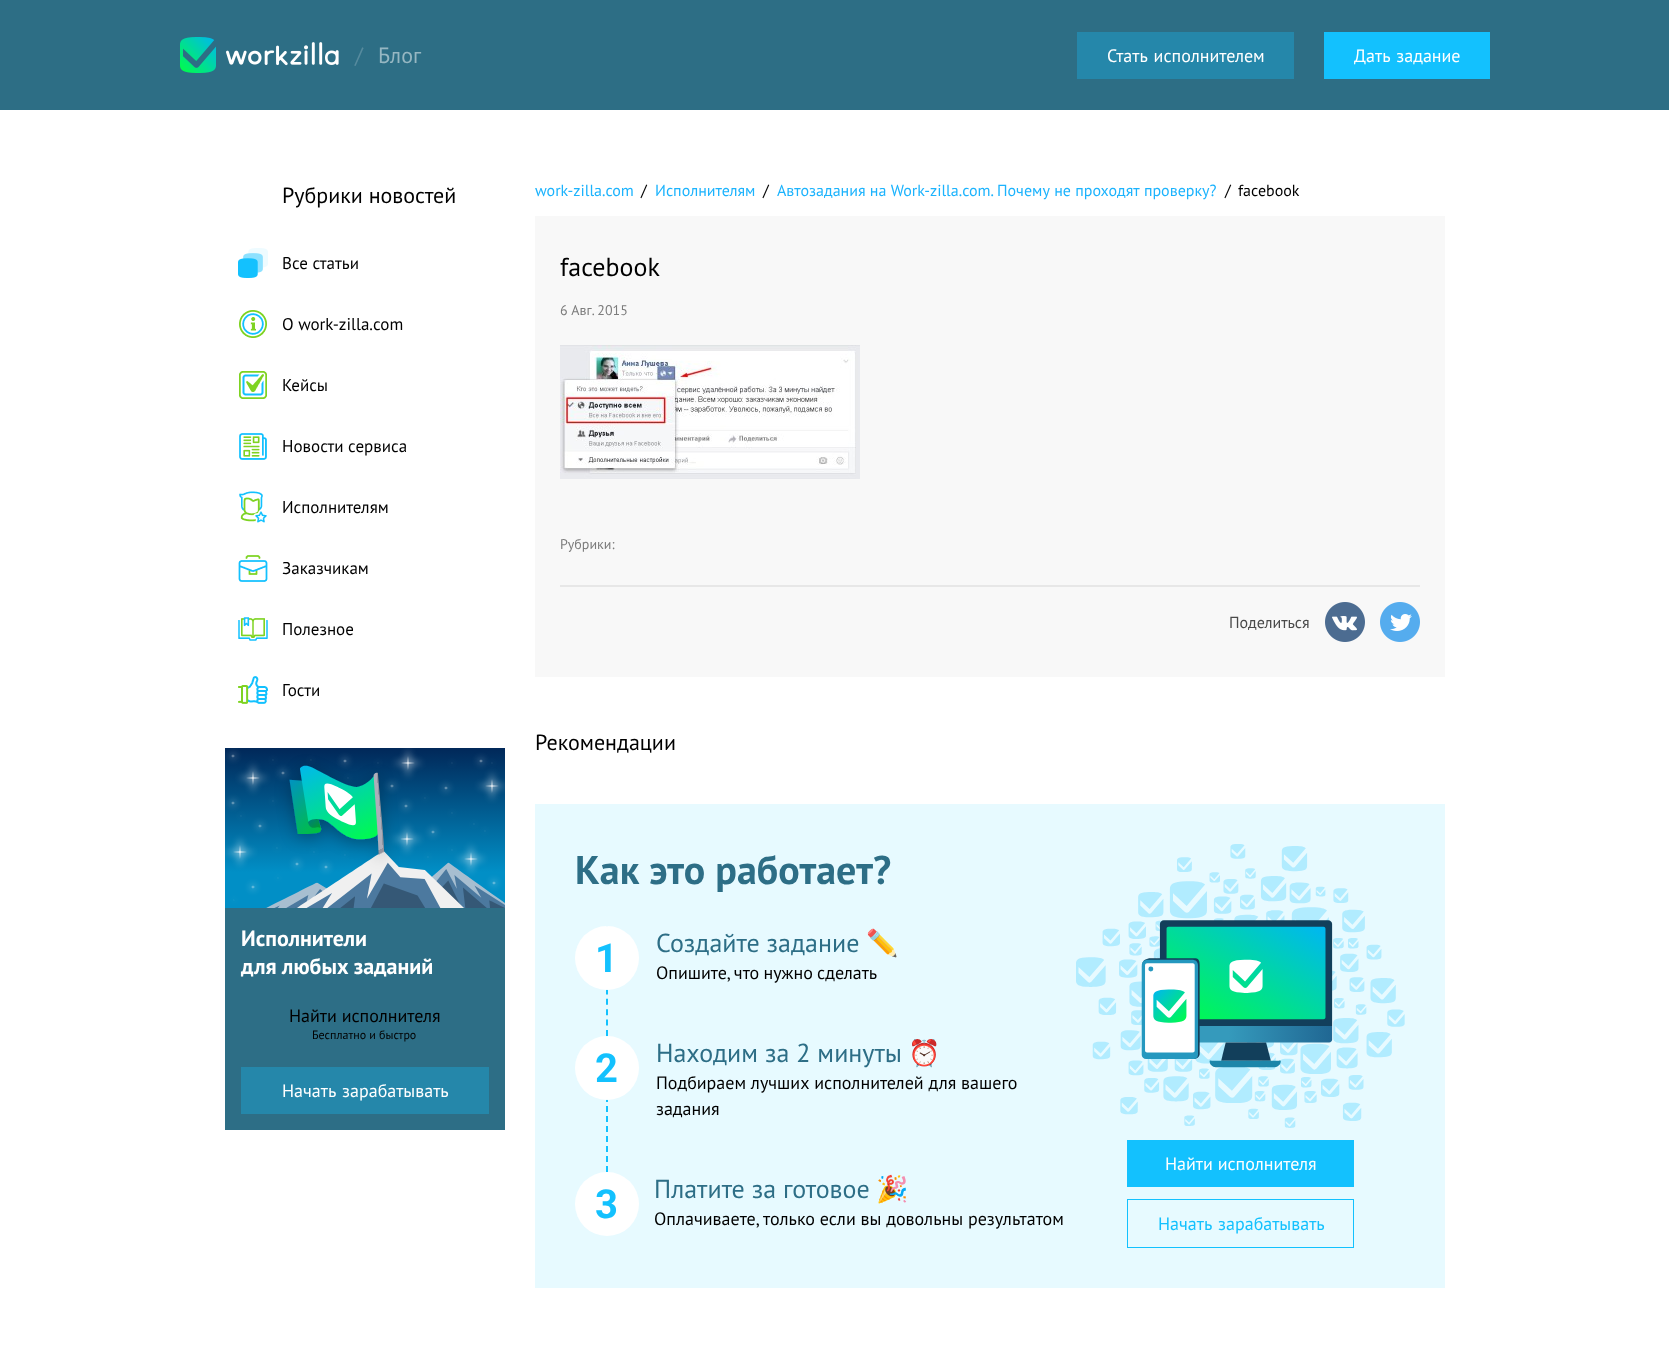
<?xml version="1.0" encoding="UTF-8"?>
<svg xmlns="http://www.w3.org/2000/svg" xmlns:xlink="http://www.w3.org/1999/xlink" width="1669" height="1350">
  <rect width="100%" height="100%" fill="#ffffff" />
  <rect width="1669" height="110" fill="#2d6e85" />
  <image x="180" y="37" width="159" height="36" xlink:href="image1.png" />
  <rect x="1077" y="32" width="217" height="47" fill="#2587aa" />
  <rect x="1324" y="32" width="166" height="47" fill="#13c1fe" />
  <image x="238" y="248" width="30" height="30" xlink:href="image2.png" />
  <image x="239" y="310" width="28" height="28" xlink:href="image3.png" />
  <image x="239" y="371" width="28" height="28" xlink:href="image4.png" />
  <image x="239" y="433" width="28" height="27" xlink:href="image5.png" />
  <image x="239" y="491" width="28" height="32" xlink:href="image6.png" />
  <image x="238" y="555" width="30" height="27" xlink:href="image7.png" />
  <image x="238" y="617" width="30" height="24" xlink:href="image8.png" />
  <image x="238" y="676" width="30" height="28" xlink:href="image9.png" />
  <rect x="225" y="908" width="280" height="222" fill="#2d6e86" />
  <image x="225" y="748" width="280" height="160" xlink:href="image10.png" />
  <rect x="241" y="1067" width="248" height="47" fill="#2587aa" />
  <rect x="535" y="216" width="910" height="461" fill="#f8f8f8" />
  <image x="560" y="345" width="300" height="134" xlink:href="image11.png" />
  <rect x="560" y="585" width="860" height="2" fill="#e7e7e7" />
  <image x="1325" y="602" width="40" height="40" xlink:href="image12.png" />
  <image x="1380" y="602" width="40" height="40" xlink:href="image13.png" />
  <rect x="535" y="804" width="910" height="484" fill="#e7faff" />
  <path d="M 607 926 v 110" fill="none" stroke="#13c1fe" stroke-width="2" stroke-dasharray="6 4.4" />
  <circle cx="607" cy="958" r="32" fill="#ffffff" />
  <path d="M 607 1036 v 136" fill="none" stroke="#13c1fe" stroke-width="2" stroke-dasharray="6 4" />
  <circle cx="607" cy="1068" r="32" fill="#ffffff" />
  <circle cx="607" cy="1204" r="32" fill="#ffffff" />
  <image x="1076" y="844" width="329" height="284" xlink:href="image14.png" />
  <rect x="1127" y="1140" width="227" height="47" fill="#13c1fe" />
  <rect x="1127.5" y="1199.5" width="226" height="48" fill="none" stroke="#13c1fe" />
  <text x="355" y="63" style="font-family: PT Sans; font-size: 22px; fill: #578b9e">/</text>
  <text x="378" y="63" style="font-family: PT Sans; font-size: 22px; fill: #96b7c2">Блог</text>
  <text x="1107" y="62" word-spacing="1" style="font-family: PT Sans; font-size: 18px; fill: #ffffff">Стать исполнителем</text>
  <text x="1354" y="62" word-spacing="1" style="font-family: PT Sans; font-size: 18px; fill: #ffffff">Дать задание</text>
  <text x="282" y="203" style="font-family: PT Sans; font-size: 22px; fill: #000000">Рубрики новостей</text>
  <text x="282" y="269" style="font-family: PT Sans; font-size: 17px; fill: #000000">Все статьи</text>
  <text x="282" y="330" style="font-family: PT Sans; font-size: 17px; fill: #000000">О work-zilla.com</text>
  <text x="282" y="391" style="font-family: PT Sans; font-size: 17px; fill: #000000">Кейсы</text>
  <text x="282" y="452" style="font-family: PT Sans; font-size: 17px; fill: #000000">Новости сервиса</text>
  <text x="282" y="513" style="font-family: PT Sans; font-size: 17px; fill: #000000">Исполнителям</text>
  <text x="282" y="574" style="font-family: PT Sans; font-size: 17px; fill: #000000">Заказчикам</text>
  <text x="282" y="635" style="font-family: PT Sans; font-size: 17px; fill: #000000">Полезное</text>
  <text x="282" y="696" style="font-family: PT Sans; font-size: 17px; fill: #000000">Гости</text>
  <text x="241" y="946" style="font-family: PT Sans; font-size: 22px; font-weight: bold; fill: #ffffff">Исполнители</text>
  <text x="241" y="974" style="font-family: PT Sans; font-size: 22px; font-weight: bold; fill: #ffffff">для любых заданий</text>
  <text x="289" y="1022" style="font-family: PT Sans; font-size: 18px; fill: #000000">Найти исполнителя</text>
  <text x="312" y="1039" style="font-family: PT Sans; font-size: 12px; fill: #000000">Бесплатно и быстро</text>
  <text x="282" y="1097" word-spacing="1" style="font-family: PT Sans; font-size: 18px; fill: #ffffff">Начать зарабатывать</text>
  <text x="535" y="196" style="font-family: PT Sans; font-size: 16px; fill: #1cb3fd">work-zilla.com</text>
  <text x="641" y="196" style="font-family: PT Sans; font-size: 16px; fill: #000000">/</text>
  <text x="655" y="196" style="font-family: PT Sans; font-size: 16px; fill: #1cb3fd">Исполнителям</text>
  <text x="763" y="196" style="font-family: PT Sans; font-size: 16px; fill: #000000">/</text>
  <text x="777" y="196" style="font-family: PT Sans; font-size: 16px; fill: #1cb3fd">Автозадания на Work-zilla.com. Почему не проходят проверку?</text>
  <text x="1225" y="196" style="font-family: PT Sans; font-size: 16px; fill: #000000">/</text>
  <text x="1238" y="196" style="font-family: PT Sans; font-size: 16px; fill: #000000">facebook</text>
  <text x="560" y="276" style="font-family: PT Sans; font-size: 26px; fill: #000000">facebook</text>
  <text x="560" y="315" style="font-family: PT Sans; font-size: 14px; fill: #7c7c7c">6 Авг. 2015</text>
  <text x="560" y="549" style="font-family: PT Sans; font-size: 14px; fill: #7c7c7c">Рубрики:</text>
  <text x="1229" y="628" style="font-family: PT Sans; font-size: 16px; fill: #4a4a4a">Поделиться</text>
  <text x="535" y="750" style="font-family: PT Sans; font-size: 22px; fill: #000000">Рекомендации</text>
  <text x="575" y="884" style="font-family: PT Sans; font-size: 40px; font-weight: bold; fill: #2d6e86">Как это работает?</text>
  <text x="595" y="972" style="font-family: Roboto; font-size: 40px; font-weight: bold; fill: #13c1fe">1</text>
  <text x="656" y="952" style="font-family: PT Sans; font-size: 26px; fill: #2d6e86">Создайте задание</text>
  <text x="866" y="952" style="font-family: Noto Color Emoji; font-size: 26px; fill: #2d6e86">✏️</text>
  <text x="656" y="979" word-spacing="-0.5" style="font-family: PT Sans; font-size: 18px; fill: #000000">Опишите, что нужно сделать</text>
  <text x="595" y="1082" style="font-family: Roboto; font-size: 40px; font-weight: bold; fill: #13c1fe">2</text>
  <text x="656" y="1062" style="font-family: PT Sans; font-size: 26px; fill: #2d6e86">Находим за 2 минуты</text>
  <text x="908" y="1062" style="font-family: Noto Color Emoji; font-size: 26px; fill: #2d6e86">⏰</text>
  <text x="656" y="1089" style="font-family: PT Sans; font-size: 18px; fill: #000000">Подбираем лучших исполнителей для вашего</text>
  <text x="656" y="1115" style="font-family: PT Sans; font-size: 18px; fill: #000000">задания</text>
  <text x="595" y="1218" style="font-family: Roboto; font-size: 40px; font-weight: bold; fill: #13c1fe">3</text>
  <text x="654" y="1198" style="font-family: PT Sans; font-size: 26px; fill: #2d6e86">Платите за готовое</text>
  <text x="876" y="1198" style="font-family: Noto Color Emoji; font-size: 26px; fill: #2d6e86">🎉</text>
  <text x="654" y="1225" style="font-family: PT Sans; font-size: 18px; fill: #000000">Оплачиваете, только если вы довольны результатом</text>
  <text x="1165" y="1170" style="font-family: PT Sans; font-size: 18px; fill: #ffffff">Найти исполнителя</text>
  <text x="1158" y="1230" word-spacing="1" style="font-family: PT Sans; font-size: 18px; fill: #13c1fe">Начать зарабатывать</text>
</svg>
